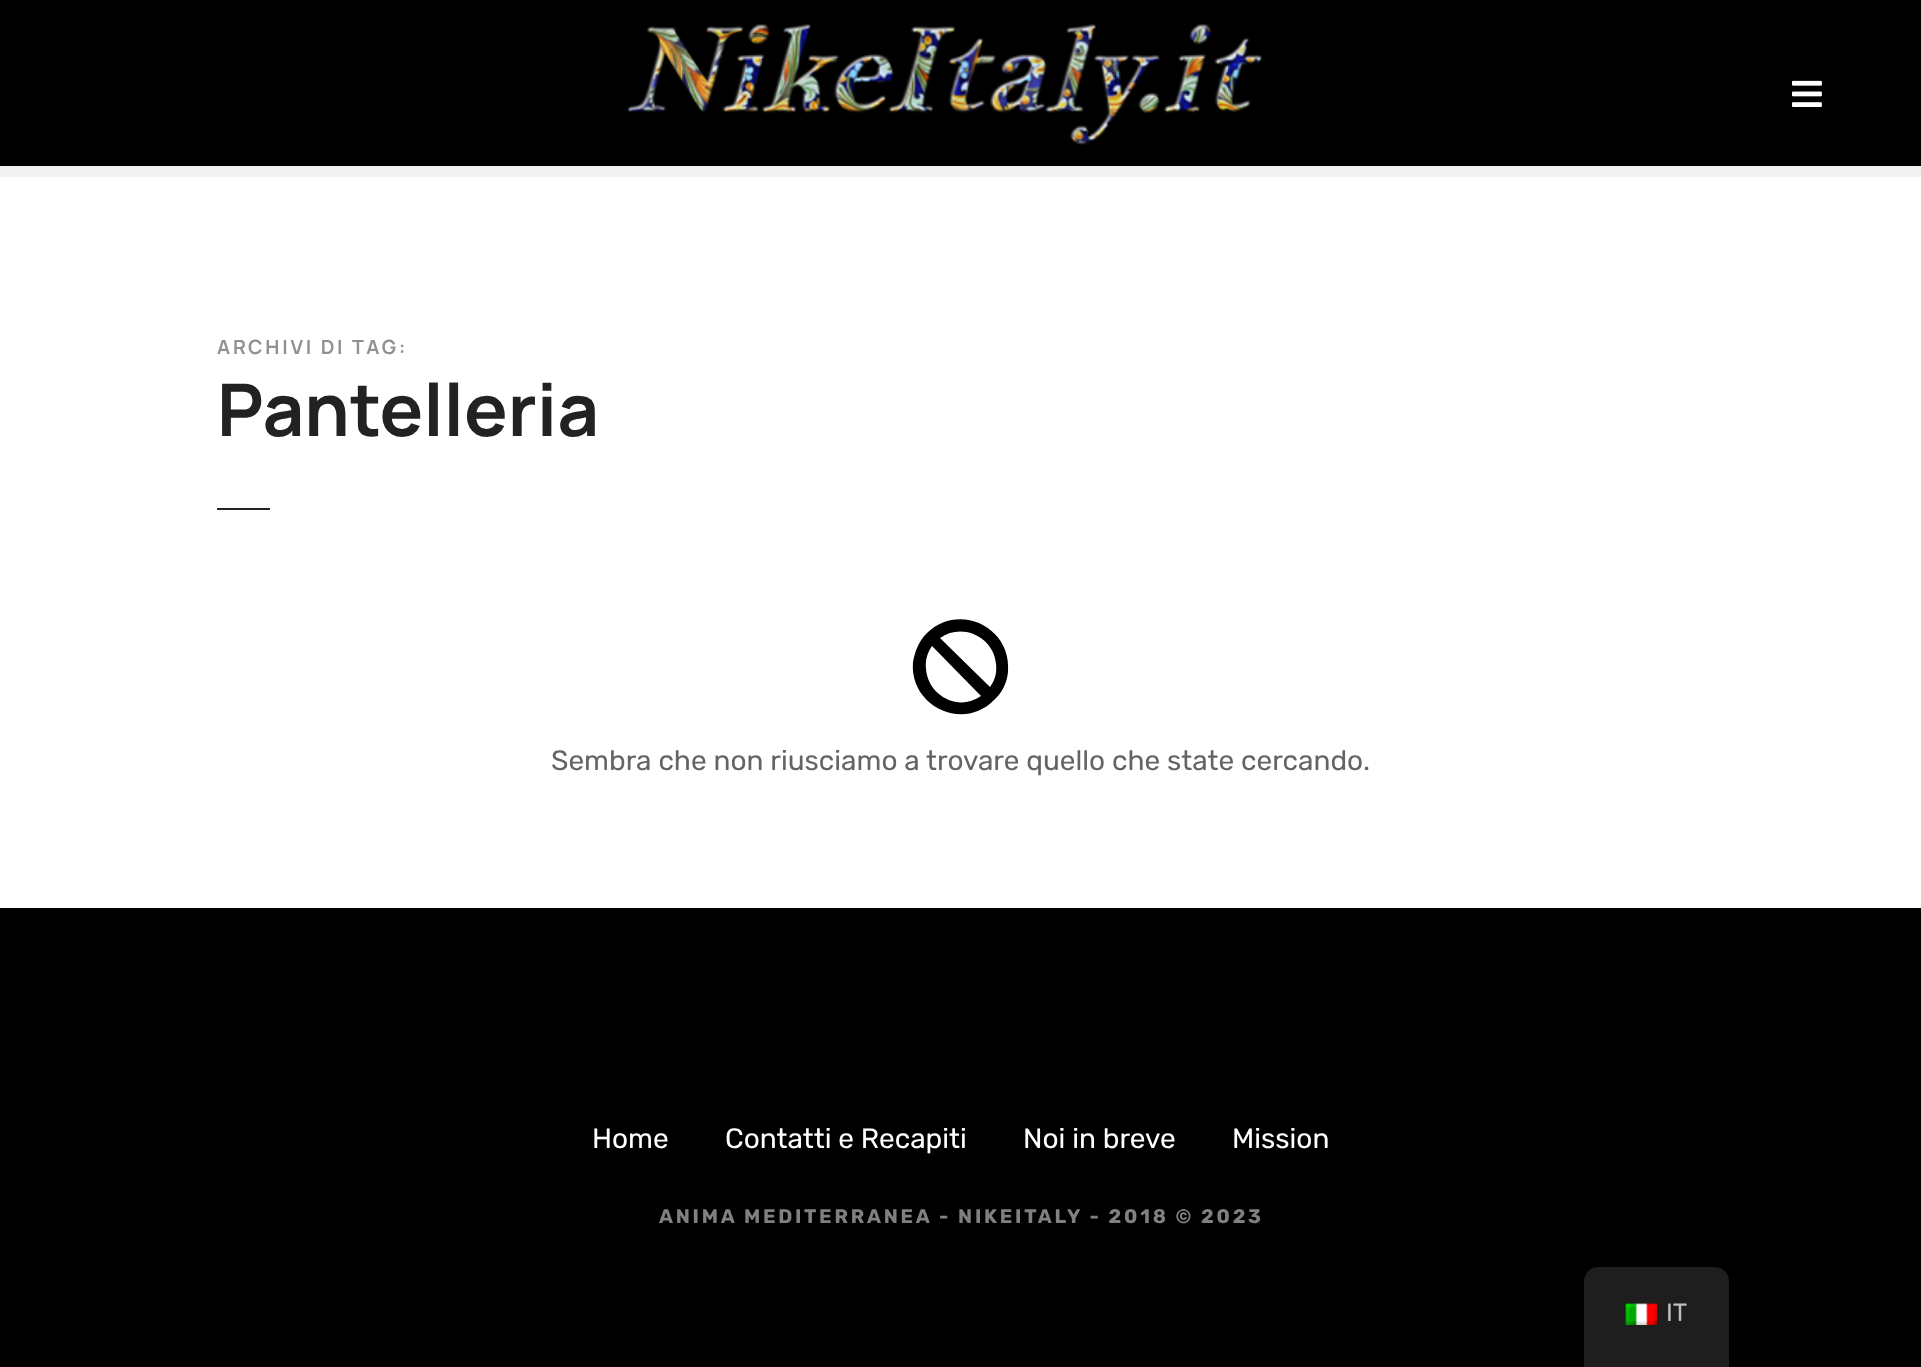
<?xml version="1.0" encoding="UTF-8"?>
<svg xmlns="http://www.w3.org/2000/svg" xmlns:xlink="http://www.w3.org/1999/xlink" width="1921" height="1367">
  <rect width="100%" height="100%" fill="#ffffff" />
  <rect width="1921" height="166" fill="#000000" />
  <image x="627" y="24" width="635" height="121" xlink:href="image1.png" />
  <image x="1792" y="80" width="30" height="27" xlink:href="image2.png" />
  <rect y="166" width="1921" height="11" fill="#f2f2f2" />
  <rect x="217" y="508" width="53" height="2" fill="#222222" />
  <path d="M 927 633 c 32 -31 85 -6 81 39 c -1 11 -6 21 -14 28 c -31 32 -85 6 -81 -38 c 2 -11 6 -21 14 -29 z m 69 31 c -2 -27 -34 -42 -56 -26 l 50 49 c 5 -7 7 -14 6 -23 z m -70 5 c 2 27 33 43 55 27 l -49 -50 c -5 7 -7 15 -6 23 z" fill="#000000" />
  <rect y="908" width="1921" height="459" fill="#000000" />
  <path d="M 1598 1267 h 117 c 7.5 0 14 6.5 14 14 v 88 h -145 v -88 c 0 -7.5 6.5 -14 14 -14 z" fill="#1e1e1e" />
  <image x="1625" y="1303" width="32" height="22" xlink:href="image3.png" />
  <text x="217" y="354" style="font-family: Manrope; font-size: 19.6px; font-weight: bold; letter-spacing: 2.75px; fill: #919191">ARCHIVI DI TAG:</text>
  <text x="217" y="436" style="font-family: Manrope; font-size: 72.75px; font-weight: bold; fill: #222222">Pantelleria</text>
  <text x="551" y="770" style="font-family: Rubik; font-size: 28px; fill: #646464">Sembra che non riusciamo a trovare quello che state cercando.</text>
  <text x="592" y="1148" style="font-family: Rubik; font-size: 28px; fill: #ffffff">Home</text>
  <text x="725" y="1148" style="font-family: Rubik; font-size: 28px; fill: #ffffff">Contatti e Recapiti</text>
  <text x="1023" y="1148" style="font-family: Rubik; font-size: 28px; fill: #ffffff">Noi in breve</text>
  <text x="1232" y="1148" style="font-family: Rubik; font-size: 28px; fill: #ffffff">Mission</text>
  <text x="659" y="1223" style="font-family: Rubik; font-size: 19.6px; font-weight: bold; letter-spacing: 2.75px; fill: #808080">ANIMA MEDITERRANEA - NIKEITALY - 2018 © 2023</text>
  <text x="1666" y="1321" style="font-family: Rubik; font-size: 25px; fill: #bdbdbd">IT</text>
</svg>
